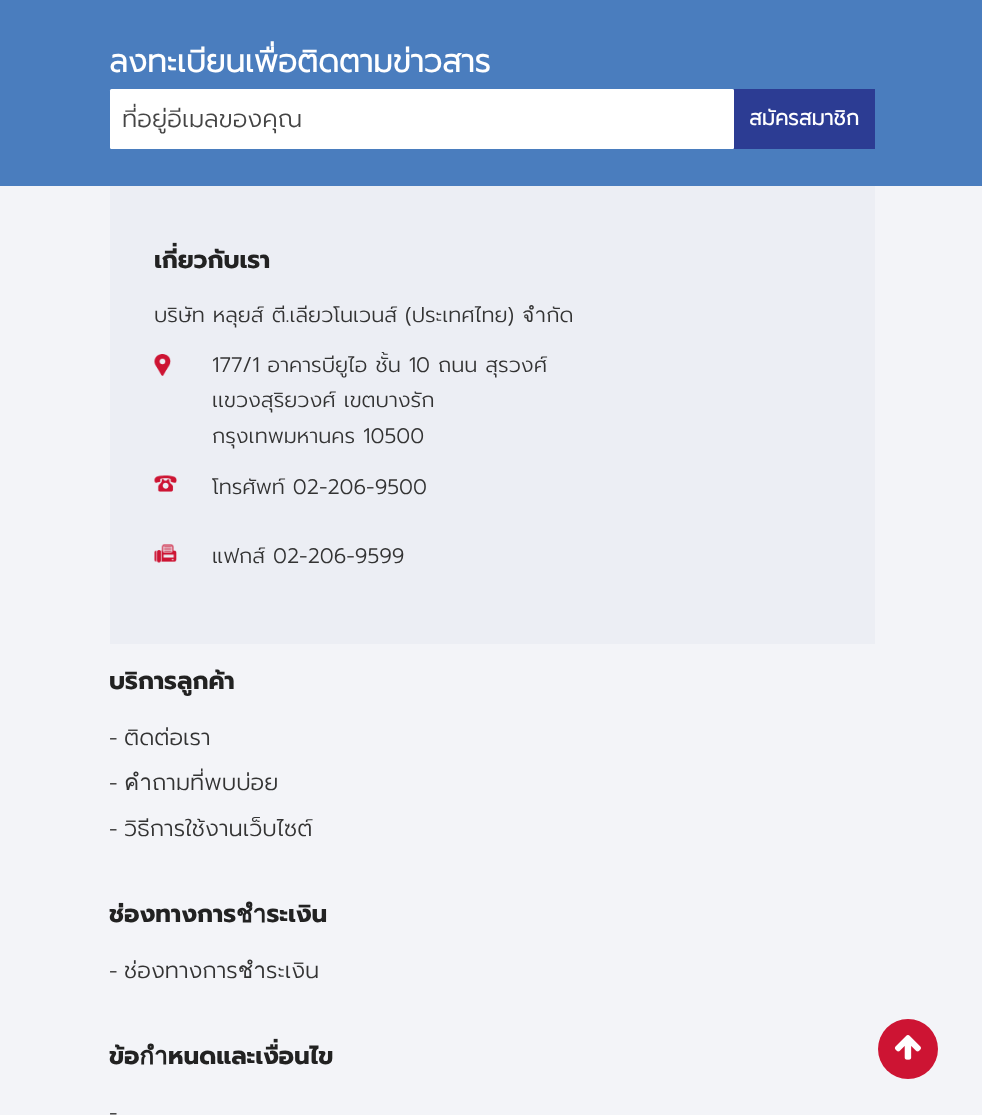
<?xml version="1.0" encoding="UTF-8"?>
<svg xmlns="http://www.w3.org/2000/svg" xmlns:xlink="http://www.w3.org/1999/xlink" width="982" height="1115">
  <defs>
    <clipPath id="clip1"><rect x="123" y="99" width="597" height="38" /></clipPath>
  </defs>
  <rect width="100%" height="100%" fill="#4a7dbe" />
  <rect x="110" y="89" width="624" height="60" rx="1.5" fill="#ffffff" />
  <rect x="734" y="89" width="141" height="60" fill="#2c3c93" />
  <rect y="186" width="982" height="929" fill="#f3f4f8" />
  <rect x="110" y="186" width="765" height="458" fill="#eceef4" />
  <image x="154" y="354" width="17" height="22" xlink:href="image1.png" />
  <image x="154" y="475" width="23" height="17" xlink:href="image2.png" />
  <image x="154" y="544" width="23" height="19" xlink:href="image3.png" />
  <circle cx="908" cy="1049" r="30" fill="#cd1433" />
  <image x="894" y="1035" width="27" height="25" xlink:href="image4.png" />
  <text x="109" y="72" style="font-family: Prompt; font-size: 31.5px; font-weight: bold; fill: #ffffff">ลงทะเบียนเพื่อติดตามข่าวสาร</text>
  <g clip-path="url(#clip1)">
    <text x="122" y="127" style="font-family: Prompt; font-size: 24.5px; font-weight: 300; fill: #444444">ที่อยู่อีเมลของคุณ</text>
  </g>
  <text x="749" y="125" style="font-family: Prompt; font-size: 21px; font-weight: bold; fill: #ffffff">สมัครสมาชิก</text>
  <text x="154" y="268" style="font-family: 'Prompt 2'; font-size: 24.5px; font-weight: bold; fill: #222222">เกี่ยวกับเรา</text>
  <text x="154" y="322" style="font-family: Prompt; font-size: 21px; font-weight: 300; fill: #333333">บริษัท หลุยส์ ตี.เลียวโนเวนส์ (ประเทศไทย) จำกัด</text>
  <text x="212" y="372" style="font-family: Prompt; font-size: 21px; font-weight: 300; fill: #333333">177/1 อาคารบียูไอ ชั้น 10 ถนน สุรวงศ์</text>
  <text x="212" y="407" style="font-family: Prompt; font-size: 21px; font-weight: 300; fill: #333333">เเขวงสุริยวงศ์ เขตบางรัก</text>
  <text x="212" y="443" style="font-family: Prompt; font-size: 21px; font-weight: 300; fill: #333333">กรุงเทพมหานคร 10500</text>
  <text x="212" y="494" style="font-family: Prompt; font-size: 21px; font-weight: 300; fill: #333333">โทรศัพท์ 02-206-9500</text>
  <text x="212" y="563" style="font-family: Prompt; font-size: 21px; font-weight: 300; fill: #333333">แฟกส์ 02-206-9599</text>
  <text x="109" y="689" style="font-family: 'Prompt 2'; font-size: 24.5px; font-weight: bold; fill: #222222">บริการลูกค้า</text>
  <text x="109" y="745" style="font-family: Prompt; font-size: 21px; font-weight: 300; fill: #333333">-</text>
  <text x="124" y="745" style="font-family: Prompt; font-size: 22.75px; font-weight: 300; fill: #333333">ติดต่อเรา</text>
  <text x="109" y="790" style="font-family: Prompt; font-size: 21px; font-weight: 300; fill: #333333">-</text>
  <text x="124" y="790" style="font-family: Prompt; font-size: 22.75px; font-weight: 300; fill: #333333">คำถามที่พบบ่อย</text>
  <text x="109" y="836" style="font-family: Prompt; font-size: 21px; font-weight: 300; fill: #333333">-</text>
  <text x="124" y="836" style="font-family: Prompt; font-size: 22.75px; font-weight: 300; fill: #333333">วิธีการใช้งานเว็บไซต์</text>
  <text x="109" y="922" style="font-family: 'Prompt 2'; font-size: 24.5px; font-weight: bold; fill: #222222">ช่องทางการชำระเงิน</text>
  <text x="109" y="978" style="font-family: Prompt; font-size: 21px; font-weight: 300; fill: #333333">-</text>
  <text x="124" y="978" style="font-family: Prompt; font-size: 22.75px; font-weight: 300; fill: #333333">ช่องทางการชำระเงิน</text>
  <text x="109" y="1064" style="font-family: 'Prompt 2'; font-size: 24.5px; font-weight: bold; fill: #222222">ข้อกำหนดและเงื่อนไข</text>
  <text x="109" y="1120" style="font-family: Prompt; font-size: 21px; font-weight: 300; fill: #333333">-</text>
</svg>
